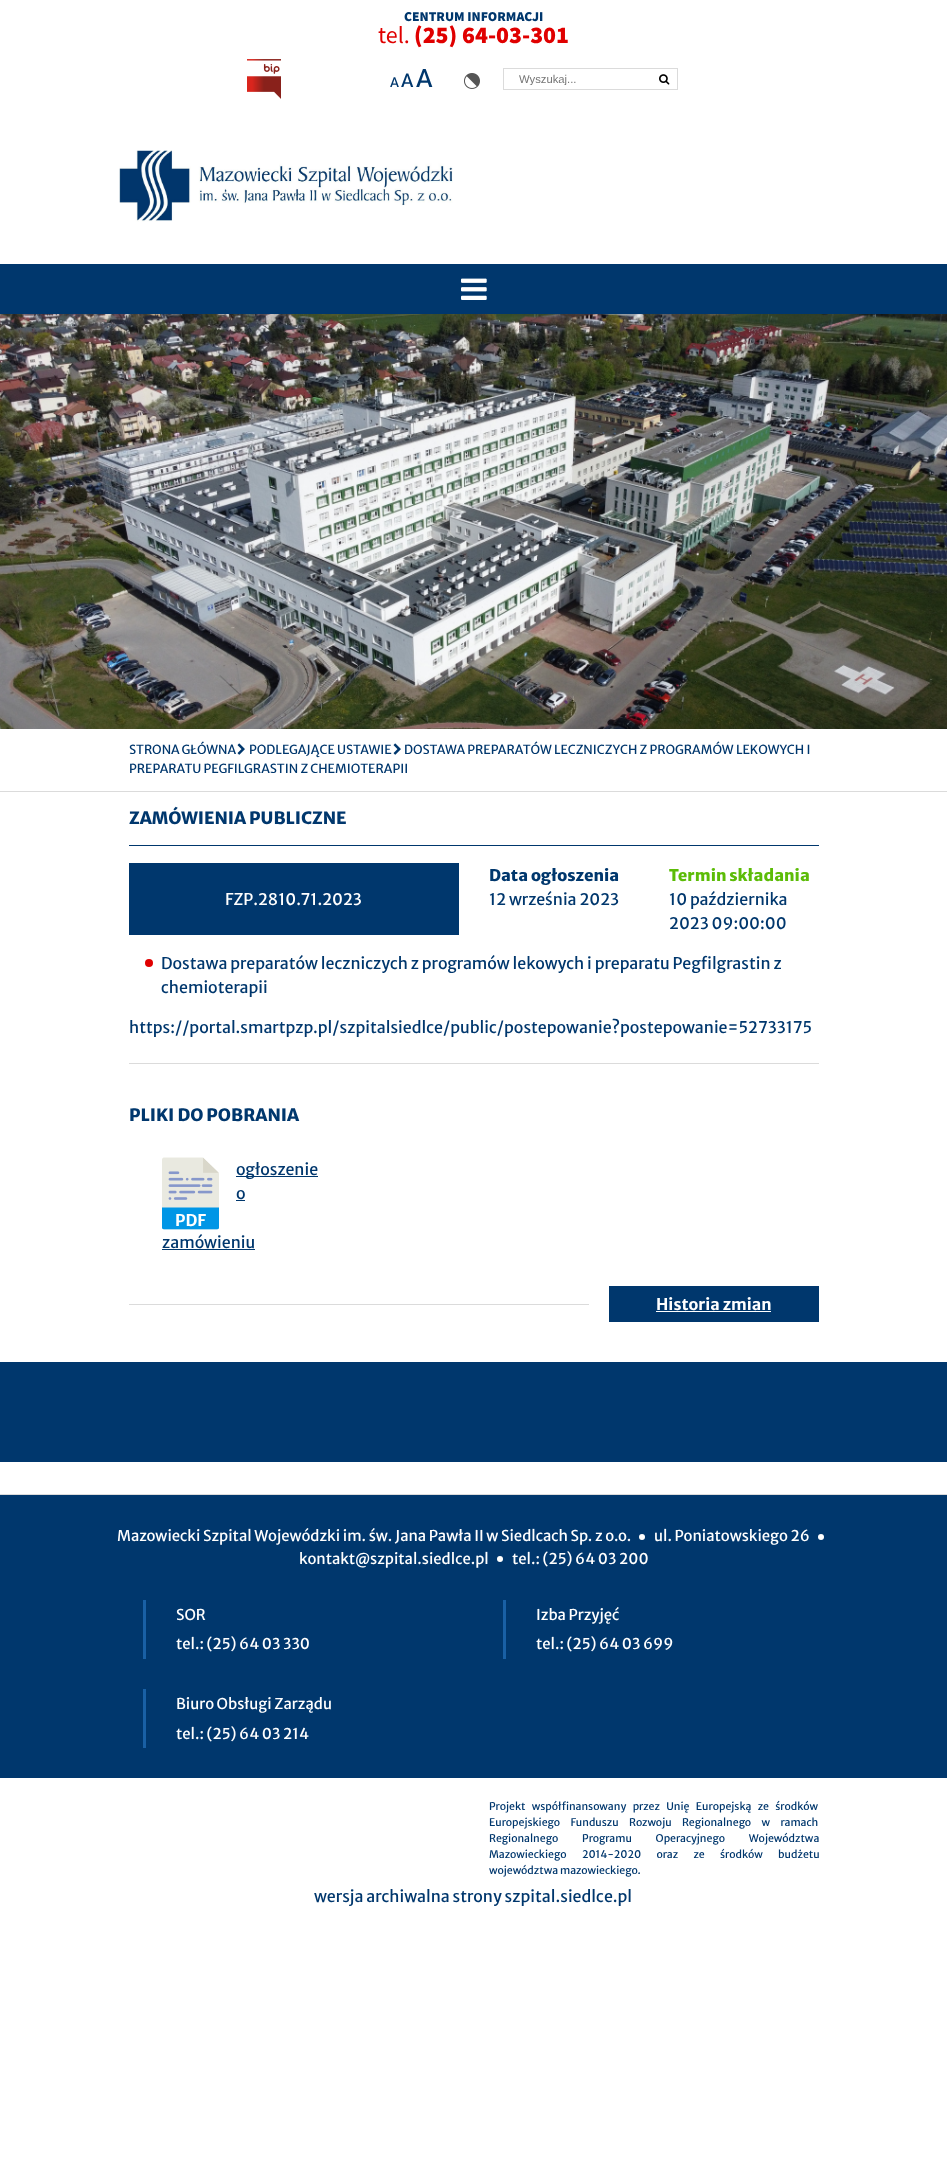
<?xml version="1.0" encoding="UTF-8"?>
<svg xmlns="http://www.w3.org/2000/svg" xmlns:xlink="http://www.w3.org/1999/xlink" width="947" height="2174">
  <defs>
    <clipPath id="clip1"><rect x="519" y="73" width="129" height="12" /></clipPath>
  </defs>
  <rect width="100%" height="100%" fill="#ffffff" />
  <image x="247" y="59" width="34" height="40" xlink:href="image1.png" />
  <image x="464" y="73" width="16" height="16" xlink:href="image2.png" />
  <rect x="503.5" y="68.5" width="174" height="21" fill="none" stroke="#dbdbdb" />
  <image x="659" y="74" width="11" height="11" xlink:href="image3.png" />
  <image x="119" y="150" width="334" height="72" xlink:href="image4.png" />
  <rect y="264" width="947" height="50" fill="#00376d" />
  <image x="461" y="278" width="26" height="22" xlink:href="image5.png" />
  <image x="0" y="314" width="947" height="415" xlink:href="image6.png" />
  <rect y="791" width="947" height="1" fill="#dbdbdb" />
  <image x="237" y="743" width="8" height="12" xlink:href="image7.png" />
  <image x="393" y="743" width="8" height="12" xlink:href="image7.png" />
  <rect x="129" y="845" width="690" height="1" fill="#00376d" />
  <rect x="129" y="863" width="330" height="72" fill="#00376d" />
  <circle cx="149" cy="963" r="4" fill="#e00000" />
  <rect x="129" y="1063" width="690" height="1" fill="#dbdbdb" />
  <rect x="236" y="1176" width="82" height="1" fill="#00376d" />
  <rect x="236" y="1200" width="9" height="1" fill="#00376d" />
  <rect x="162" y="1249" width="93" height="1" fill="#00376d" />
  <image x="162" y="1157" width="57" height="73" xlink:href="image8.png" />
  <rect x="609" y="1286" width="210" height="36" fill="#00376d" />
  <rect x="129" y="1304" width="460" height="1" fill="#dbdbdb" />
  <rect x="656" y="1311" width="115" height="1" fill="#ffffff" />
  <rect y="1362" width="947" height="100" fill="#00376d" />
  <rect y="1494" width="947" height="1" fill="#dbdbdb" />
  <rect y="1495" width="947" height="283" fill="#00376d" />
  <circle cx="642" cy="1537" r="3" fill="#ffffff" />
  <circle cx="821" cy="1537" r="3" fill="#ffffff" />
  <circle cx="500" cy="1559" r="3" fill="#ffffff" />
  <rect x="143" y="1600" width="3" height="59" fill="#1960a5" />
  <rect x="503" y="1600" width="3" height="59" fill="#1960a5" />
  <rect x="143" y="1689" width="3" height="59" fill="#1960a5" />
  <text x="404" y="21" style="font-family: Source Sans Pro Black; font-size: 13.6px; font-weight: 900; fill: #00376d">CENTRUM INFORMACJI</text>
  <text x="378" y="43" style="font-family: Source Sans Pro; font-size: 24px; fill: #e00000">tel.</text>
  <text x="414" y="43" style="font-family: Source Sans Pro Black; font-size: 24px; font-weight: 900; fill: #e00000">(25) 64-03-301</text>
  <text x="390" y="87" style="font-family: Merriweather Sans; font-size: 13px; fill: #00376d">A</text>
  <text x="401" y="87" style="font-family: Merriweather Sans; font-size: 18px; fill: #00376d">A</text>
  <text x="416" y="87" style="font-family: Merriweather Sans; font-size: 24px; fill: #00376d">A</text>
  <g clip-path="url(#clip1)">
    <text x="519" y="83" style="font-family: Liberation Sans; font-size: 11.25px; fill: #757575">Wyszukaj...</text>
  </g>
  <text x="129" y="754" style="font-family: Merriweather Sans; font-size: 12.5px; fill: #00376d">STRONA GŁÓWNA</text>
  <text x="249" y="754" style="font-family: Merriweather Sans; font-size: 12.5px; fill: #00376d">PODLEGAJĄCE USTAWIE</text>
  <text x="404" y="754" style="font-family: Merriweather Sans; font-size: 12.5px; fill: #00376d">DOSTAWA PREPARATÓW LECZNICZYCH Z PROGRAMÓW LEKOWYCH I</text>
  <text x="129" y="773" style="font-family: Merriweather Sans; font-size: 12.5px; fill: #00376d">PREPARATU PEGFILGRASTIN Z CHEMIOTERAPII</text>
  <text x="129" y="824" style="font-family: Merriweather Sans; font-size: 17px; font-weight: 800; fill: #00376d">ZAMÓWIENIA PUBLICZNE</text>
  <text x="225" y="905" style="font-family: Merriweather Sans; font-size: 16px; fill: #ffffff">FZP.2810.71.2023</text>
  <text x="489" y="881" style="font-family: Merriweather Sans; font-size: 16px; font-weight: 800; fill: #00376d">Data ogłoszenia</text>
  <text x="489" y="905" style="font-family: Merriweather Sans; font-size: 16px; fill: #00376d">12 września 2023</text>
  <text x="669" y="881" style="font-family: Merriweather Sans; font-size: 16px; font-weight: 800; fill: #5cbc07">Termin składania</text>
  <text x="669" y="905" style="font-family: Merriweather Sans; font-size: 16px; fill: #00376d">10 października</text>
  <text x="669" y="929" style="font-family: Merriweather Sans; font-size: 16px; fill: #00376d">2023 09:00:00</text>
  <text x="161" y="969" style="font-family: Merriweather Sans; font-size: 16px; fill: #00376d">Dostawa preparatów leczniczych z programów lekowych i preparatu Pegfilgrastin z</text>
  <text x="161" y="993" style="font-family: Merriweather Sans; font-size: 16px; fill: #00376d">chemioterapii</text>
  <text x="129" y="1033" style="font-family: Merriweather Sans; font-size: 16px; fill: #00376d">https://portal.smartpzp.pl/szpitalsiedlce/public/postepowanie?postepowanie=52733175</text>
  <text x="129" y="1121" style="font-family: Merriweather Sans; font-size: 17px; font-weight: 800; fill: #00376d">PLIKI DO POBRANIA</text>
  <text x="236" y="1175" style="font-family: Merriweather Sans; font-size: 16px; fill: #00376d">ogłoszenie</text>
  <text x="236" y="1199" style="font-family: Merriweather Sans; font-size: 16px; fill: #00376d">o</text>
  <text x="162" y="1248" style="font-family: Merriweather Sans; font-size: 16px; fill: #00376d">zamówieniu</text>
  <text x="175" y="1226" style="font-family: Merriweather Sans; font-size: 16px; font-weight: bold; fill: #ffffff">PDF</text>
  <text x="656" y="1310" style="font-family: Merriweather Sans; font-size: 16px; font-weight: bold; fill: #ffffff">Historia zmian</text>
  <text x="117" y="1541" style="font-family: Merriweather Sans; font-size: 14.9px; fill: #ffffff">Mazowiecki Szpital Wojewódzki im. św. Jana Pawła II w Siedlcach Sp. z o.o.</text>
  <text x="654" y="1541" style="font-family: Merriweather Sans; font-size: 14.9px; fill: #ffffff">ul. Poniatowskiego 26</text>
  <text x="299" y="1564" style="font-family: Merriweather Sans; font-size: 14.9px; fill: #ffffff">kontakt@szpital.siedlce.pl</text>
  <text x="512" y="1564" style="font-family: Merriweather Sans; font-size: 14.9px; fill: #ffffff">tel.: (25) 64 03 200</text>
  <text x="176" y="1620" style="font-family: Merriweather Sans; font-size: 14.9px; fill: #ffffff">SOR</text>
  <text x="176" y="1649" style="font-family: Merriweather Sans; font-size: 14.9px; fill: #ffffff">tel.: (25) 64 03 330</text>
  <text x="536" y="1620" style="font-family: Merriweather Sans; font-size: 14.9px; fill: #ffffff">Izba Przyjęć</text>
  <text x="536" y="1649" style="font-family: Merriweather Sans; font-size: 14.9px; fill: #ffffff">tel.: (25) 64 03 699</text>
  <text x="176" y="1709" style="font-family: Merriweather Sans; font-size: 14.9px; fill: #ffffff">Biuro Obsługi Zarządu</text>
  <text x="176" y="1739" style="font-family: Merriweather Sans; font-size: 14.9px; fill: #ffffff">tel.: (25) 64 03 214</text>
  <text x="489" y="1810" word-spacing="4.5" style="font-family: Merriweather Sans; font-size: 10.55px; fill: #00376d">Projekt współfinansowany przez Unię Europejską ze środków</text>
  <text x="489" y="1826" word-spacing="8.5" style="font-family: Merriweather Sans; font-size: 10.55px; fill: #00376d">Europejskiego Funduszu Rozwoju Regionalnego w ramach</text>
  <text x="489" y="1842" word-spacing="22" style="font-family: Merriweather Sans; font-size: 10.55px; fill: #00376d">Regionalnego Programu Operacyjnego Województwa</text>
  <text x="489" y="1858" word-spacing="13.5" style="font-family: Merriweather Sans; font-size: 10.55px; fill: #00376d">Mazowieckiego 2014-2020 oraz ze środków budżetu</text>
  <text x="489" y="1874" style="font-family: Merriweather Sans; font-size: 10.55px; fill: #00376d">województwa mazowieckiego.</text>
  <text x="314" y="1902" style="font-family: Merriweather Sans; font-size: 16px; fill: #00376d">wersja archiwalna strony szpital.siedlce.pl</text>
</svg>
